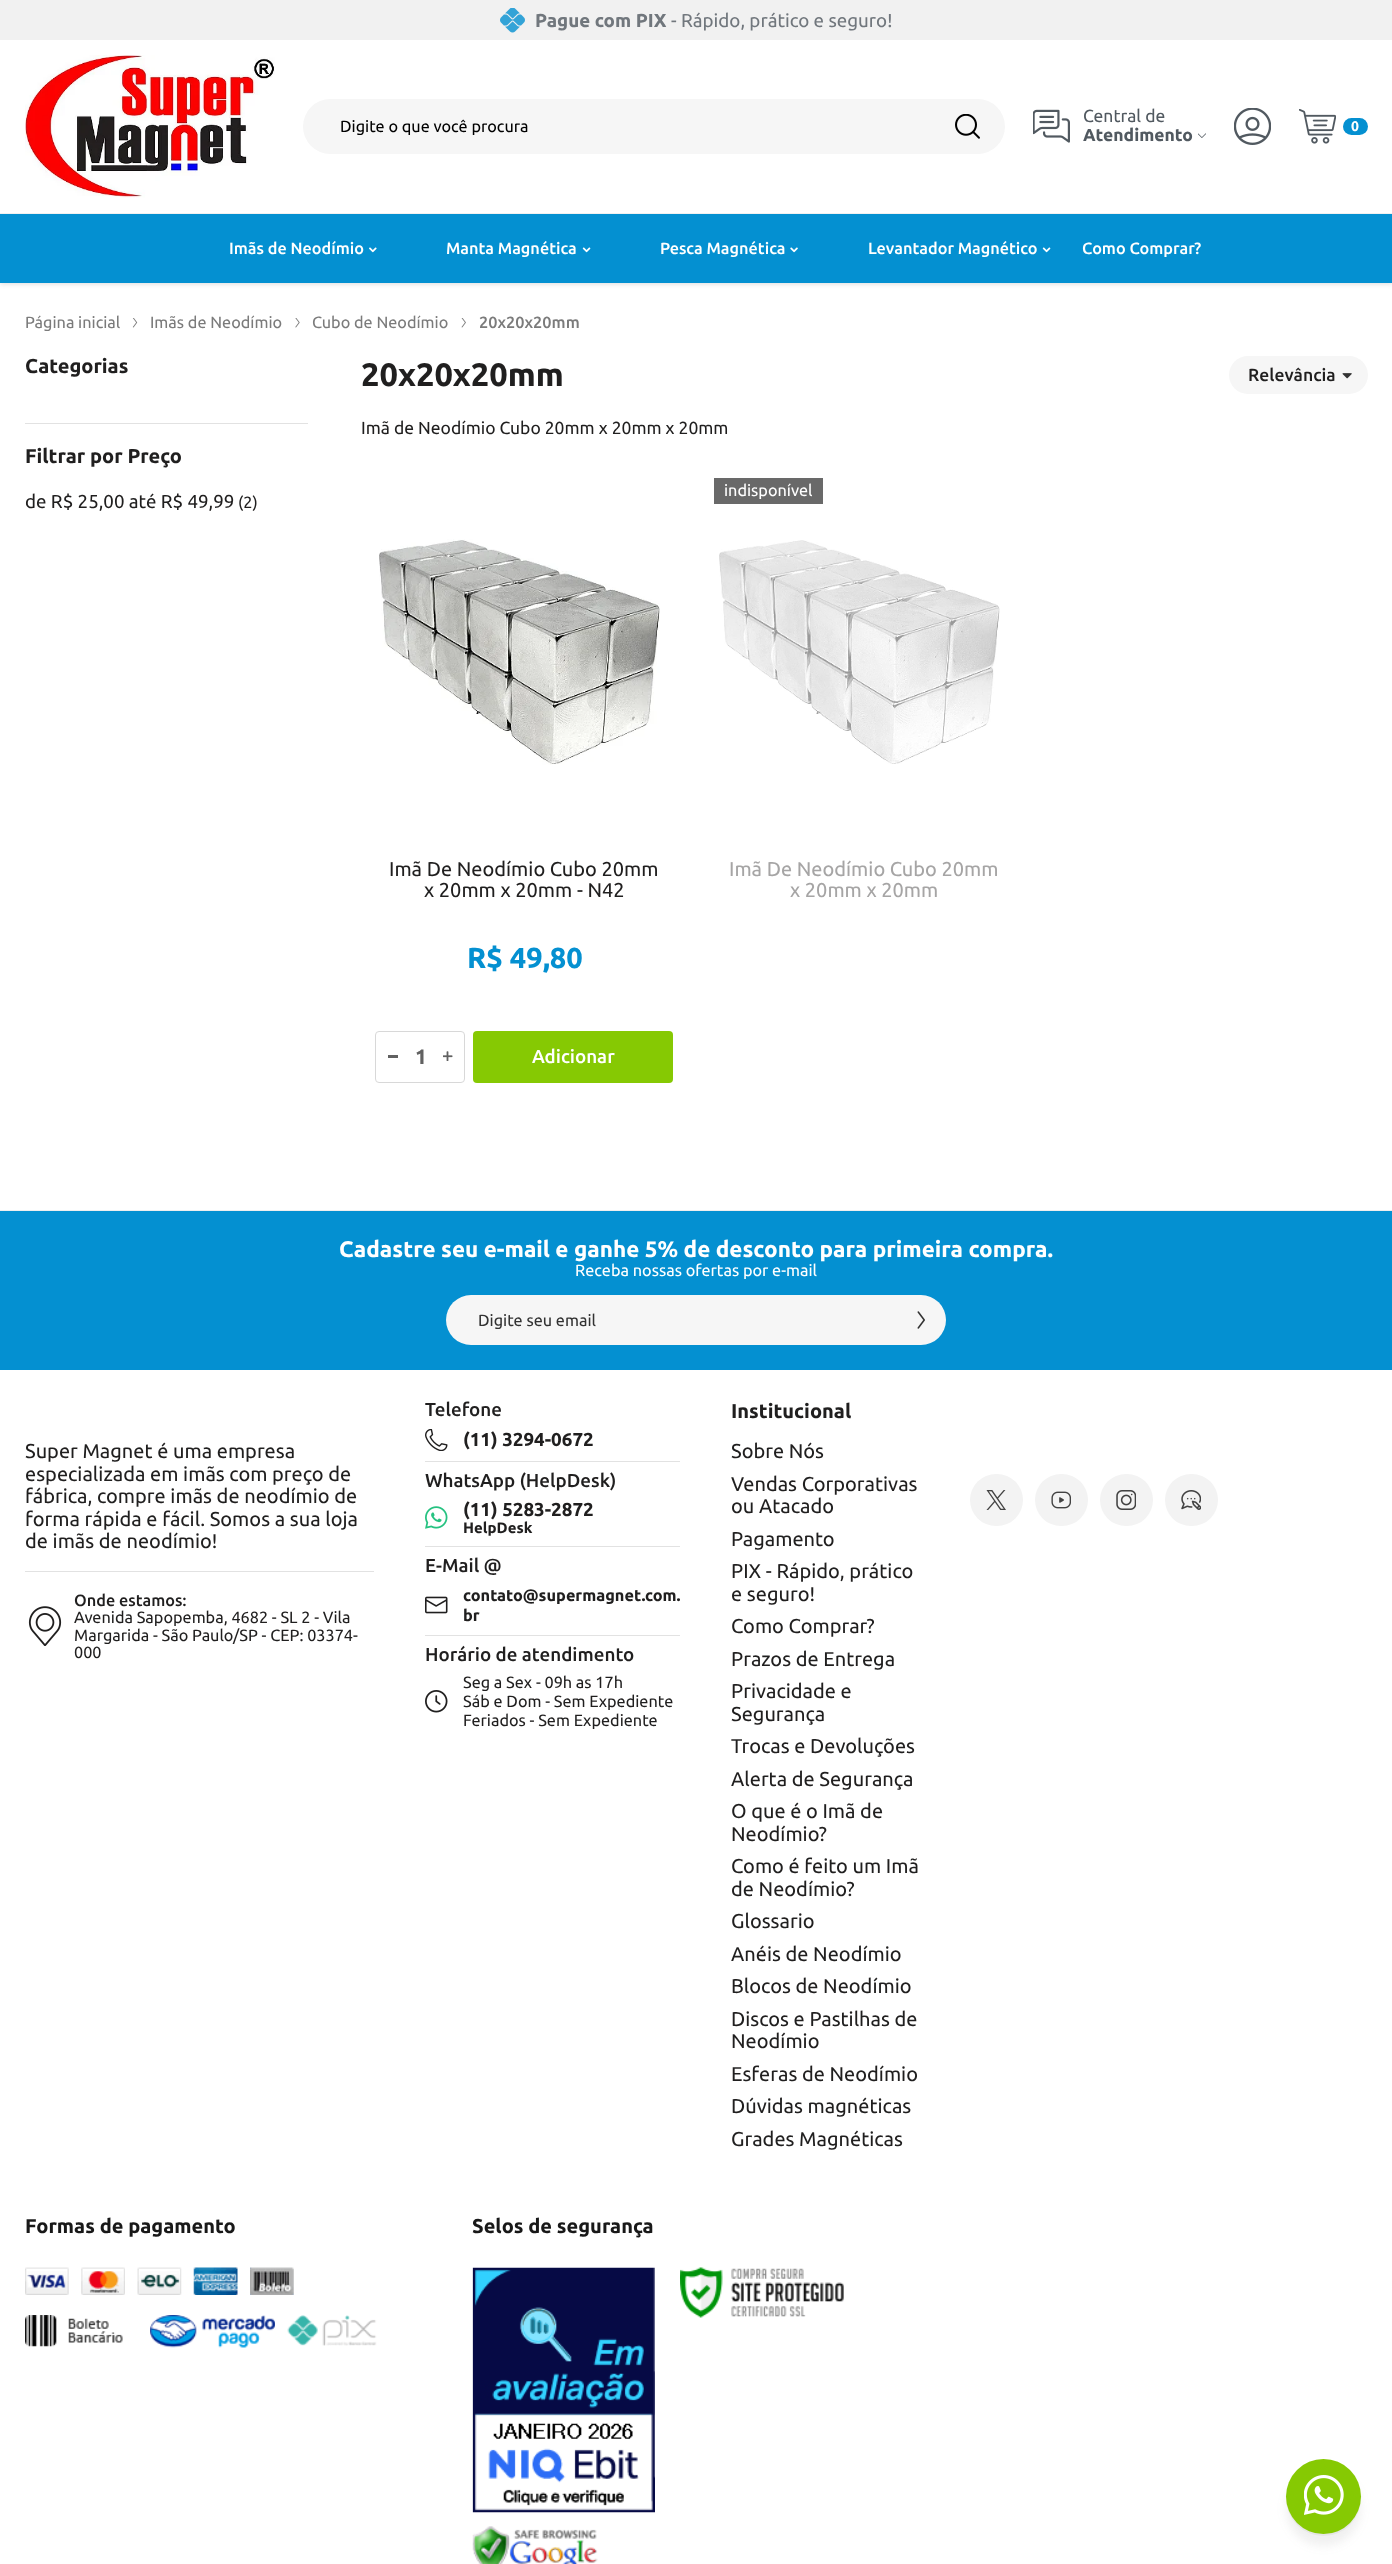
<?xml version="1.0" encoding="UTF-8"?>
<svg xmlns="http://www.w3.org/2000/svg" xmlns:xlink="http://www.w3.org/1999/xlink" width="1392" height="2564">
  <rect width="100%" height="100%" fill="#ffffff" />
  <rect width="1392" height="40" fill="#f1f1f1" />
  <image x="500" y="8" width="25" height="25" xlink:href="image1.png" />
  <rect y="215" width="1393" height="69" fill="#525252" fill-opacity="0.2" filter="blur(2.5px)" />
  <rect y="211" width="1392" height="2" fill="#ffffff" />
  <rect y="213" width="1392" height="1" fill="#f1f1f1" />
  <image x="25" y="55" width="250" height="143" xlink:href="image2.png" />
  <rect x="303" y="99" width="702" height="55" rx="27.5" fill="#f6f6f6" />
  <image x="955" y="114" width="25" height="25" xlink:href="image3.png" />
  <image x="1033" y="109" width="37" height="34" xlink:href="image4.png" />
  <image x="1198" y="133" width="8" height="5" xlink:href="image5.png" />
  <image x="1234" y="108" width="37" height="37" xlink:href="image6.png" />
  <image x="1299" y="109" width="37" height="35" xlink:href="image7.png" />
  <rect x="1343" y="118" width="25" height="17" rx="8.5" fill="#0490d1" />
  <rect y="214" width="1392" height="69" fill="#0490d1" />
  <image x="369" y="247" width="8" height="6" xlink:href="image8.png" />
  <image x="582" y="247" width="9" height="6" xlink:href="image9.png" />
  <image x="790" y="247" width="8" height="6" xlink:href="image10.png" />
  <image x="1042" y="247" width="9" height="6" xlink:href="image9.png" />
  <image x="132" y="318" width="6" height="10" xlink:href="image11.png" />
  <image x="295" y="318" width="5" height="10" xlink:href="image12.png" />
  <image x="461" y="318" width="5" height="10" xlink:href="image13.png" />
  <rect x="25" y="423" width="283" height="1" fill="#e2e2e2" />
  <rect x="1229" y="356" width="139" height="38" rx="19" fill="#f6f6f6" />
  <image x="1342" y="373" width="10" height="6" xlink:href="image14.png" />
  <rect x="714" y="478" width="109" height="26" fill="#696969" />
  <image x="719" y="540" width="281" height="224" xlink:href="image15.png" />
  <image x="379" y="539" width="281" height="226" xlink:href="image16.png" />
  <rect x="375.5" y="1031.5" width="89" height="51" rx="3.5" fill="none" stroke="#d8d8d8" />
  <rect x="388" y="1055" width="10" height="3" fill="#616161" />
  <image x="443" y="1051" width="10" height="10" xlink:href="image17.png" />
  <rect x="473" y="1031" width="200" height="52" rx="4" fill="#86c903" />
  <rect y="1210" width="1392" height="1" fill="#efefef" />
  <rect y="1211" width="1392" height="159" fill="#0490d1" />
  <rect x="446" y="1295" width="500" height="50" rx="25" fill="#f6f6f6" />
  <image x="917" y="1311" width="8" height="18" xlink:href="image18.png" />
  <rect x="25" y="1571" width="349" height="1" fill="#e2e2e2" />
  <image x="28" y="1606" width="34" height="40" xlink:href="image19.png" />
  <rect x="425" y="1461" width="255" height="1" fill="#e2e2e2" />
  <image x="425" y="1429" width="23" height="22" xlink:href="image20.png" />
  <rect x="425" y="1546" width="255" height="1" fill="#e2e2e2" />
  <image x="425" y="1506" width="23" height="23" xlink:href="image21.png" />
  <rect x="425" y="1635" width="255" height="1" fill="#e2e2e2" />
  <image x="425" y="1596" width="23" height="18" xlink:href="image22.png" />
  <image x="425" y="1690" width="23" height="23" xlink:href="image23.png" />
  <rect x="970" y="1474" width="53" height="52" rx="26" fill="#f3f3f3" />
  <image x="986" y="1490" width="20" height="20" xlink:href="image24.png" />
  <rect x="1035" y="1474" width="53" height="52" rx="26" fill="#f3f3f3" />
  <image x="1051" y="1491" width="20" height="18" xlink:href="image25.png" />
  <rect x="1100" y="1474" width="53" height="52" rx="26" fill="#f3f3f3" />
  <image x="1116" y="1490" width="20" height="20" xlink:href="image26.png" />
  <rect x="1165" y="1474" width="53" height="52" rx="26" fill="#f3f3f3" />
  <image x="1181" y="1490" width="20" height="20" xlink:href="image27.png" />
  <image x="25" y="2267" width="44" height="28" xlink:href="image28.png" />
  <image x="81" y="2267" width="44" height="28" xlink:href="image29.png" />
  <image x="137" y="2267" width="45" height="28" xlink:href="image30.png" />
  <image x="193" y="2267" width="45" height="28" xlink:href="image31.png" />
  <image x="250" y="2267" width="44" height="28" xlink:href="image32.png" />
  <image x="25" y="2315" width="98" height="32" xlink:href="image33.png" />
  <image x="150" y="2315" width="125" height="33" xlink:href="image34.png" />
  <image x="287" y="2315" width="90" height="31" xlink:href="image35.png" />
  <image x="472" y="2267" width="183" height="246" xlink:href="image36.png" />
  <image x="680" y="2267" width="164" height="51" xlink:href="image37.png" />
  <image x="472" y="2526" width="126" height="38" xlink:href="image38.png" />
  <rect x="1286" y="2471" width="75" height="75" rx="37.5" fill="#676767" fill-opacity="0.1" filter="blur(5px)" />
  <rect x="1286" y="2461" width="75" height="75" rx="37.5" fill="#000000" fill-opacity="0.04" filter="blur(0.5px)" />
  <circle cx="1323.5" cy="2496.5" r="37.5" fill="#86c903" />
  <image x="1304" y="2475" width="40" height="40" xlink:href="image39.png" />
  <text x="535" y="27" style="font-family: Ubuntu; font-size: 18.75px; font-weight: bold; fill: #71777d">Pague com PIX</text>
  <text x="671" y="27" style="font-family: Ubuntu; font-size: 18.75px; fill: #71777d">- Rápido, prático e seguro!</text>
  <text x="340" y="132" style="font-family: Ubuntu; font-size: 16.25px; fill: #000000">Digite o que você procura</text>
  <text x="1083" y="122" style="font-family: Ubuntu; font-size: 17.5px; fill: #515960">Central de</text>
  <text x="1083" y="141" style="font-family: Ubuntu; font-size: 17.5px; font-weight: bold; fill: #515960">Atendimento</text>
  <text x="1351" y="131" style="font-family: Ubuntu; font-size: 14px; font-weight: bold; fill: #ffffff">0</text>
  <text x="229" y="254" style="font-family: Ubuntu; font-size: 16.25px; font-weight: 500; fill: #ffffff">Imãs de Neodímio</text>
  <text x="446" y="254" style="font-family: Ubuntu; font-size: 16.25px; font-weight: 500; fill: #ffffff">Manta Magnética</text>
  <text x="660" y="254" style="font-family: Ubuntu; font-size: 16.25px; font-weight: 500; fill: #ffffff">Pesca Magnética</text>
  <text x="868" y="254" style="font-family: Ubuntu; font-size: 16.25px; font-weight: 500; fill: #ffffff">Levantador Magnético</text>
  <text x="1082" y="254" style="font-family: Ubuntu; font-size: 16.25px; font-weight: 500; fill: #ffffff">Como Comprar?</text>
  <text x="25" y="328" style="font-family: Ubuntu; font-size: 16.25px; fill: #7b7b7b">Página inicial</text>
  <text x="150" y="328" style="font-family: Ubuntu; font-size: 16.25px; fill: #7b7b7b">Imãs de Neodímio</text>
  <text x="312" y="328" style="font-family: Ubuntu; font-size: 16.25px; fill: #7b7b7b">Cubo de Neodímio</text>
  <text x="479" y="328" style="font-family: Ubuntu; font-size: 16.25px; font-weight: 500; fill: #7b7b7b">20x20x20mm</text>
  <text x="25" y="373" style="font-family: Ubuntu; font-size: 20px; font-weight: bold; fill: #201f1f">Categorias</text>
  <text x="25" y="463" style="font-family: Ubuntu; font-size: 20px; font-weight: bold; fill: #201f1f">Filtrar por Preço</text>
  <text x="25" y="508" style="font-family: Ubuntu; font-size: 18.75px; fill: #201f1f">de R$ 25,00 até R$ 49,99</text>
  <text x="238" y="508" style="font-family: Ubuntu; font-size: 16.25px; fill: #201f1f">(2)</text>
  <text x="361" y="386" style="font-family: Ubuntu; font-size: 32.5px; font-weight: bold; fill: #201f1f">20x20x20mm</text>
  <text x="1248" y="381" style="font-family: Ubuntu; font-size: 17.5px; font-weight: 500; fill: #201f1f">Relevância</text>
  <text x="361" y="434" style="font-family: Ubuntu; font-size: 17.5px; fill: #201f1f">Imã de Neodímio Cubo 20mm x 20mm x 20mm</text>
  <text x="724" y="496" style="font-family: Ubuntu; font-size: 16.25px; fill: #ffffff">indisponível</text>
  <text x="729" y="876" style="font-family: Ubuntu; font-size: 20px; fill: #a6a5a5">Imã De Neodímio Cubo 20mm</text>
  <text x="790" y="897" style="font-family: Ubuntu; font-size: 20px; fill: #a6a5a5">x 20mm x 20mm</text>
  <text x="389" y="876" style="font-family: Ubuntu; font-size: 20px; fill: #201f1f">Imã De Neodímio Cubo 20mm</text>
  <text x="424" y="897" style="font-family: Ubuntu; font-size: 20px; fill: #201f1f">x 20mm x 20mm - N42</text>
  <text x="467" y="968" style="font-family: Ubuntu; font-size: 29px; font-weight: bold; fill: #0490d1">R$ 49,80</text>
  <text x="415" y="1064" style="font-family: Ubuntu; font-size: 21px; font-weight: bold; fill: #616161">1</text>
  <text x="532" y="1063" style="font-family: Ubuntu; font-size: 18.75px; font-weight: 500; fill: #ffffff">Adicionar</text>
  <text x="339" y="1257" style="font-family: Ubuntu; font-size: 22.5px; font-weight: bold; fill: #ffffff">Cadastre seu e-mail e ganhe 5% de desconto para primeira compra.</text>
  <text x="575" y="1276" style="font-family: Ubuntu; font-size: 16.25px; fill: #ffffff">Receba nossas ofertas por e-mail</text>
  <text x="478" y="1326" style="font-family: Ubuntu; font-size: 16.25px; fill: #323232">Digite seu email</text>
  <text x="25" y="1458" style="font-family: Ubuntu; font-size: 20px; fill: #201f1f">Super Magnet é uma empresa</text>
  <text x="25" y="1481" style="font-family: Ubuntu; font-size: 20px; fill: #201f1f">especializada em imãs com preço de</text>
  <text x="25" y="1503" style="font-family: Ubuntu; font-size: 20px; fill: #201f1f">fábrica, compre imãs de neodímio de</text>
  <text x="25" y="1526" style="font-family: Ubuntu; font-size: 20px; fill: #201f1f">forma rápida e fácil. Somos a sua loja</text>
  <text x="25" y="1548" style="font-family: Ubuntu; font-size: 20px; fill: #201f1f">de imãs de neodímio!</text>
  <text x="74" y="1606" style="font-family: Ubuntu; font-size: 16.25px; font-weight: 500; fill: #201f1f">Onde estamos:</text>
  <text x="74" y="1623" style="font-family: Ubuntu; font-size: 16.25px; fill: #201f1f">Avenida Sapopemba, 4682 - SL 2 - Vila</text>
  <text x="74" y="1641" style="font-family: Ubuntu; font-size: 16.25px; fill: #201f1f">Margarida - São Paulo/SP - CEP: 03374-</text>
  <text x="74" y="1658" style="font-family: Ubuntu; font-size: 16.25px; fill: #201f1f">000</text>
  <text x="425" y="1416" style="font-family: Ubuntu; font-size: 18.75px; font-weight: 500; fill: #201f1f">Telefone</text>
  <text x="463" y="1446" style="font-family: Ubuntu; font-size: 18.75px; font-weight: bold; fill: #201f1f">(11) 3294-0672</text>
  <text x="425" y="1487" style="font-family: Ubuntu; font-size: 18.75px; font-weight: 500; fill: #201f1f">WhatsApp (HelpDesk)</text>
  <text x="463" y="1516" style="font-family: Ubuntu; font-size: 18.75px; font-weight: bold; fill: #201f1f">(11) 5283-2872</text>
  <text x="463" y="1533" style="font-family: Ubuntu; font-size: 15px; font-weight: bold; fill: #201f1f">HelpDesk</text>
  <text x="425" y="1572" style="font-family: Ubuntu; font-size: 18.75px; font-weight: 500; fill: #201f1f">E-Mail @</text>
  <text x="463" y="1601" style="font-family: Ubuntu; font-size: 16.25px; font-weight: bold; fill: #201f1f">contato@supermagnet.com.</text>
  <text x="463" y="1621" style="font-family: Ubuntu; font-size: 16.25px; font-weight: bold; fill: #201f1f">br</text>
  <text x="425" y="1661" style="font-family: Ubuntu; font-size: 18.75px; font-weight: 500; fill: #201f1f">Horário de atendimento</text>
  <text x="463" y="1688" style="font-family: Ubuntu; font-size: 16.25px; fill: #201f1f">Seg a Sex - 09h as 17h</text>
  <text x="463" y="1707" style="font-family: Ubuntu; font-size: 16.25px; fill: #201f1f">Sáb e Dom - Sem Expediente</text>
  <text x="463" y="1726" style="font-family: Ubuntu; font-size: 16.25px; fill: #201f1f">Feriados - Sem Expediente</text>
  <text x="731" y="1418" style="font-family: Ubuntu; font-size: 20px; font-weight: bold; fill: #201f1f">Institucional</text>
  <text x="731" y="1458" style="font-family: Ubuntu; font-size: 20px; fill: #201f1f">Sobre Nós</text>
  <text x="731" y="1491" style="font-family: Ubuntu; font-size: 20px; fill: #201f1f">Vendas Corporativas</text>
  <text x="731" y="1513" style="font-family: Ubuntu; font-size: 20px; fill: #201f1f">ou Atacado</text>
  <text x="731" y="1546" style="font-family: Ubuntu; font-size: 20px; fill: #201f1f">Pagamento</text>
  <text x="731" y="1578" style="font-family: Ubuntu; font-size: 20px; fill: #201f1f">PIX - Rápido, prático</text>
  <text x="731" y="1601" style="font-family: Ubuntu; font-size: 20px; fill: #201f1f">e seguro!</text>
  <text x="731" y="1633" style="font-family: Ubuntu; font-size: 20px; fill: #201f1f">Como Comprar?</text>
  <text x="731" y="1666" style="font-family: Ubuntu; font-size: 20px; fill: #201f1f">Prazos de Entrega</text>
  <text x="731" y="1698" style="font-family: Ubuntu; font-size: 20px; fill: #201f1f">Privacidade e</text>
  <text x="731" y="1721" style="font-family: Ubuntu; font-size: 20px; fill: #201f1f">Segurança</text>
  <text x="731" y="1753" style="font-family: Ubuntu; font-size: 20px; fill: #201f1f">Trocas e Devoluções</text>
  <text x="731" y="1786" style="font-family: Ubuntu; font-size: 20px; fill: #201f1f">Alerta de Segurança</text>
  <text x="731" y="1818" style="font-family: Ubuntu; font-size: 20px; fill: #201f1f">O que é o Imã de</text>
  <text x="731" y="1841" style="font-family: Ubuntu; font-size: 20px; fill: #201f1f">Neodímio?</text>
  <text x="731" y="1873" style="font-family: Ubuntu; font-size: 20px; fill: #201f1f">Como é feito um Imã</text>
  <text x="731" y="1896" style="font-family: Ubuntu; font-size: 20px; fill: #201f1f">de Neodímio?</text>
  <text x="731" y="1928" style="font-family: Ubuntu; font-size: 20px; fill: #201f1f">Glossario</text>
  <text x="731" y="1961" style="font-family: Ubuntu; font-size: 20px; fill: #201f1f">Anéis de Neodímio</text>
  <text x="731" y="1993" style="font-family: Ubuntu; font-size: 20px; fill: #201f1f">Blocos de Neodímio</text>
  <text x="731" y="2026" style="font-family: Ubuntu; font-size: 20px; fill: #201f1f">Discos e Pastilhas de</text>
  <text x="731" y="2048" style="font-family: Ubuntu; font-size: 20px; fill: #201f1f">Neodímio</text>
  <text x="731" y="2081" style="font-family: Ubuntu; font-size: 20px; fill: #201f1f">Esferas de Neodímio</text>
  <text x="731" y="2113" style="font-family: Ubuntu; font-size: 20px; fill: #201f1f">Dúvidas magnéticas</text>
  <text x="731" y="2146" style="font-family: Ubuntu; font-size: 20px; fill: #201f1f">Grades Magnéticas</text>
  <text x="25" y="2233" style="font-family: Ubuntu; font-size: 20px; font-weight: bold; fill: #181818">Formas de pagamento</text>
  <text x="472" y="2233" style="font-family: Ubuntu; font-size: 20px; font-weight: bold; fill: #181818">Selos de segurança</text>
</svg>
